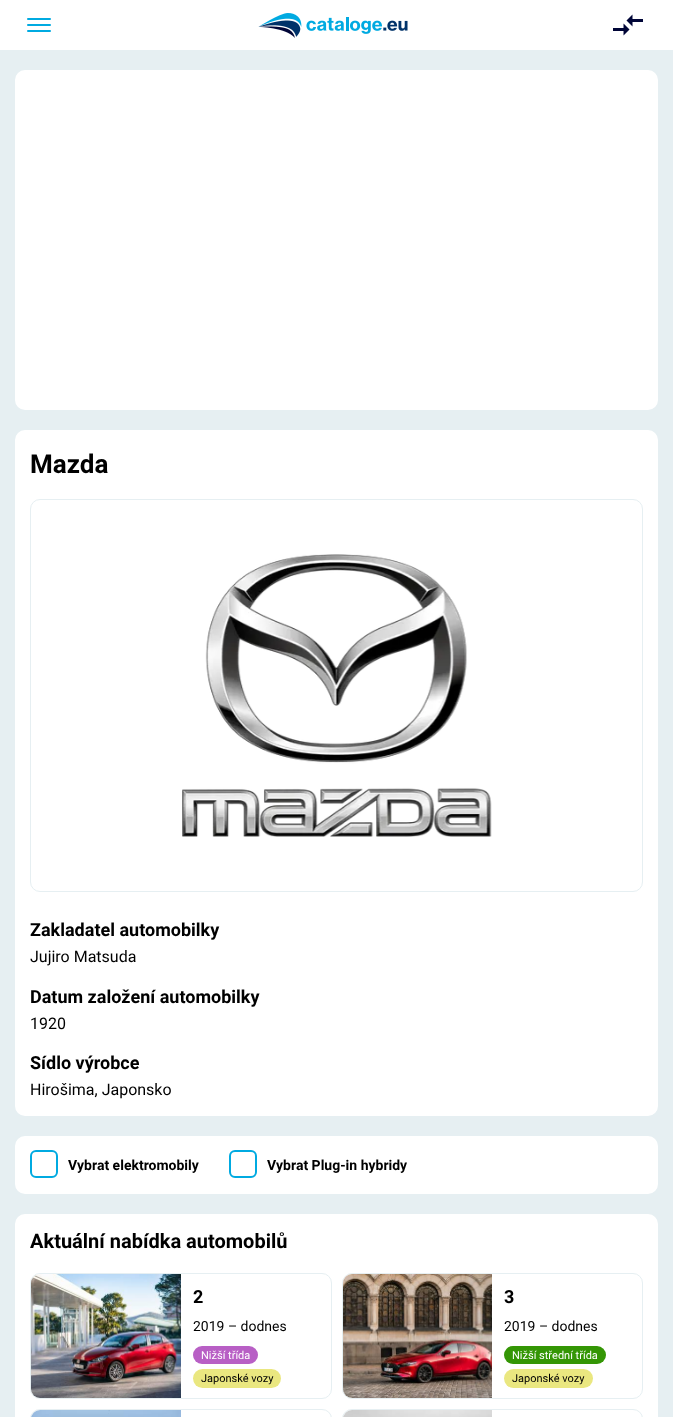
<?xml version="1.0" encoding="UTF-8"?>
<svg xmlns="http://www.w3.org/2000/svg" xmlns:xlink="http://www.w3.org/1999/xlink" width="673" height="1417">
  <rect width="100%" height="100%" fill="#e6eff2" />
  <rect width="673" height="50" fill="#ffffff" />
  <rect x="27" y="24" width="24" height="2" rx="1" fill="#00aae1" />
  <rect x="27" y="18" width="24" height="2" rx="1" fill="#00aae1" />
  <rect x="27" y="30" width="24" height="2" rx="1" fill="#00aae1" />
  <image x="258" y="13" width="150" height="25" xlink:href="image1.png" />
  <image x="613" y="14" width="30" height="22" xlink:href="image2.png" />
  <rect x="15" y="70" width="643" height="340" rx="10" fill="#ffffff" />
  <rect x="15" y="430" width="643" height="686" rx="10" fill="#ffffff" />
  <rect x="30.5" y="499.5" width="612" height="392" rx="9.5" fill="none" stroke="#e6eff2" />
  <image x="182" y="554" width="310" height="283" xlink:href="image3.png" />
  <rect x="15" y="1136" width="643" height="58" rx="10" fill="#ffffff" />
  <rect x="31" y="1151" width="26" height="26" rx="5" fill="none" stroke="#00aae1" stroke-width="2" />
  <rect x="230" y="1151" width="26" height="26" rx="5" fill="none" stroke="#00aae1" stroke-width="2" />
  <rect x="15" y="1214" width="643" height="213" rx="10" fill="#ffffff" />
  <rect x="30.5" y="1273.5" width="301" height="125" rx="9.5" fill="none" stroke="#e6eff2" />
  <image x="31" y="1274" width="150" height="124" xlink:href="image4.png" />
  <rect x="193" y="1346" width="65" height="18" rx="9" fill="#b85fc5" />
  <rect x="193" y="1369" width="88" height="19" rx="9.5" fill="#eae780" />
  <rect x="342.5" y="1273.5" width="300" height="125" rx="9.5" fill="none" stroke="#e6eff2" />
  <image x="343" y="1274" width="149" height="124" xlink:href="image5.png" />
  <rect x="504" y="1346" width="102" height="18" rx="9" fill="#349605" />
  <rect x="504" y="1369" width="89" height="19" rx="9.5" fill="#eae780" />
  <rect x="30.5" y="1409.5" width="301" height="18" rx="9.5" fill="none" stroke="#e6eff2" />
  <image x="31" y="1410" width="150" height="7" xlink:href="image6.png" />
  <rect x="342.5" y="1409.5" width="300" height="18" rx="9.5" fill="none" stroke="#e6eff2" />
  <image x="343" y="1410" width="149" height="7" xlink:href="image7.png" />
  <text x="30" y="473" style="font-family: Roboto; font-size: 26px; font-weight: bold; fill: #000000">Mazda</text>
  <text x="30" y="936" style="font-family: Roboto; font-size: 18px; font-weight: bold; fill: #000000">Zakladatel automobilky</text>
  <text x="30" y="962" style="font-family: Roboto; font-size: 16px; fill: #000000">Jujiro Matsuda</text>
  <text x="30" y="1003" style="font-family: Roboto; font-size: 18px; font-weight: bold; fill: #000000">Datum založení automobilky</text>
  <text x="30" y="1029" style="font-family: Roboto; font-size: 16px; fill: #000000">1920</text>
  <text x="30" y="1069" style="font-family: Roboto; font-size: 18px; font-weight: bold; fill: #000000">Sídlo výrobce</text>
  <text x="30" y="1095" style="font-family: Roboto; font-size: 16px; fill: #000000">Hirošima, Japonsko</text>
  <text x="68" y="1170" style="font-family: Roboto; font-size: 14px; font-weight: bold; fill: #000000">Vybrat elektromobily</text>
  <text x="267" y="1170" style="font-family: Roboto; font-size: 14px; font-weight: bold; fill: #000000">Vybrat Plug-in hybridy</text>
  <text x="30" y="1248" style="font-family: Roboto; font-size: 20px; font-weight: bold; fill: #000000">Aktuální nabídka automobilů</text>
  <text x="193" y="1303" style="font-family: Roboto; font-size: 18px; font-weight: bold; fill: #000000">2</text>
  <text x="193" y="1331" style="font-family: Roboto; font-size: 14px; fill: #000000">2019 – dodnes</text>
  <text x="201" y="1359" style="font-family: Roboto; font-size: 11px; fill: #ffffff">Nižší třída</text>
  <text x="201" y="1382" style="font-family: Roboto; font-size: 11px; fill: #000000">Japonské vozy</text>
  <text x="504" y="1303" style="font-family: Roboto; font-size: 18px; font-weight: bold; fill: #000000">3</text>
  <text x="504" y="1331" style="font-family: Roboto; font-size: 14px; fill: #000000">2019 – dodnes</text>
  <text x="512" y="1359" style="font-family: Roboto; font-size: 11px; fill: #ffffff">Nižší střední třída</text>
  <text x="512" y="1382" style="font-family: Roboto; font-size: 11px; fill: #000000">Japonské vozy</text>
</svg>
